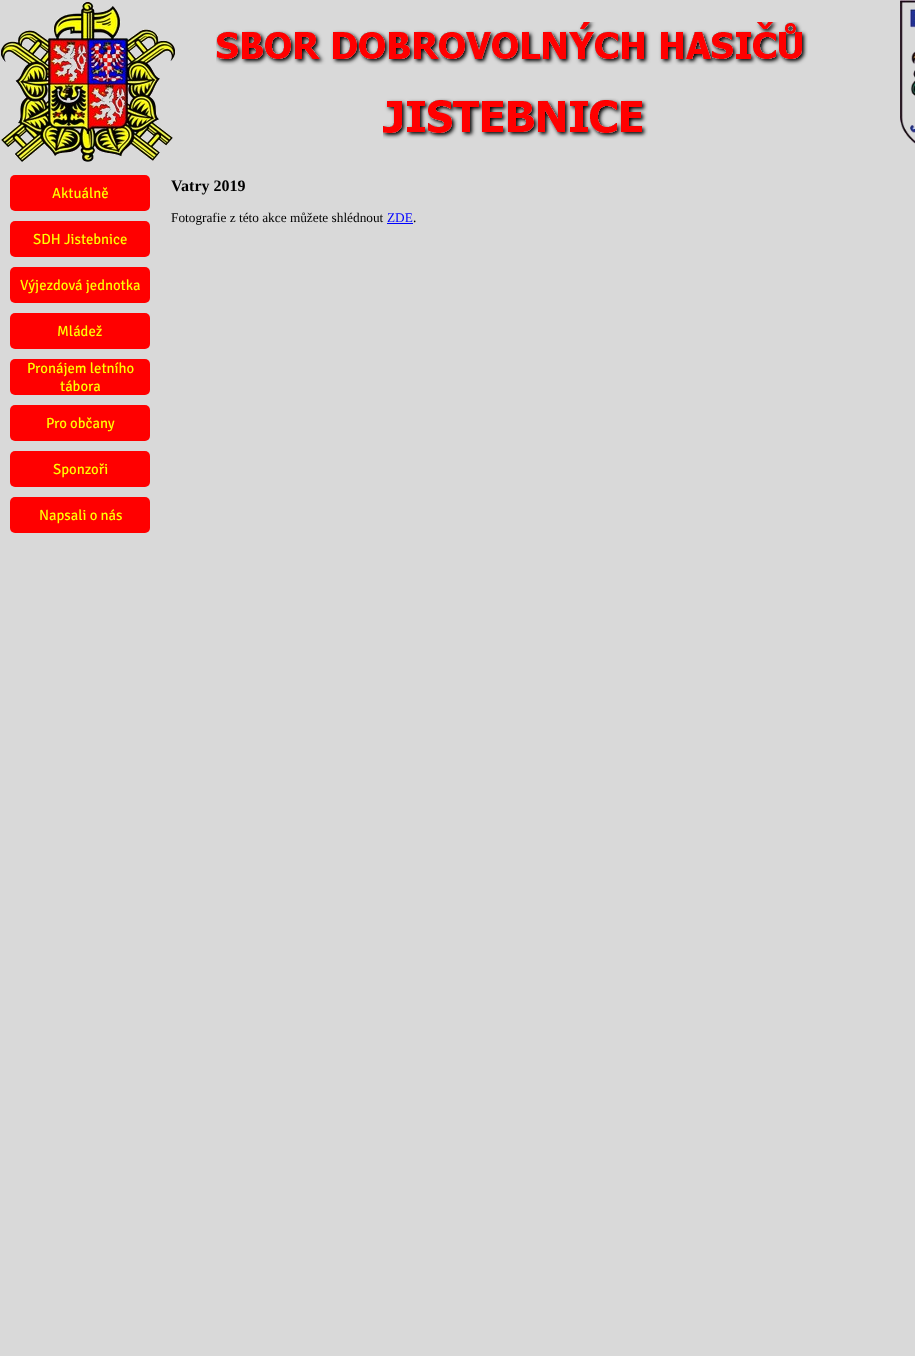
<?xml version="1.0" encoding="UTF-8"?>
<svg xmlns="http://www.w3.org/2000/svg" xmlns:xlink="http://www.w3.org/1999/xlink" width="915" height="1356">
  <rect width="100%" height="100%" fill="#d9d9d9" />
  <image x="1" y="2" width="174" height="160" xlink:href="image1.png" />
  <image x="216" y="22" width="592" height="43" xlink:href="image2.png" />
  <image x="900" y="0" width="15" height="144" xlink:href="image3.png" />
  <image x="383" y="98" width="265" height="41" xlink:href="image4.png" />
  <rect x="10" y="175" width="140" height="36" rx="5" fill="#ff0000" />
  <rect x="10" y="221" width="140" height="36" rx="5" fill="#ff0000" />
  <rect x="10" y="267" width="140" height="36" rx="5" fill="#ff0000" />
  <rect x="10" y="313" width="140" height="36" rx="5" fill="#ff0000" />
  <rect x="10" y="359" width="140" height="36" rx="5" fill="#ff0000" />
  <rect x="10" y="405" width="140" height="36" rx="5" fill="#ff0000" />
  <rect x="10" y="451" width="140" height="36" rx="5" fill="#ff0000" />
  <rect x="10" y="497" width="140" height="36" rx="5" fill="#ff0000" />
  <rect x="387" y="223" width="26" height="1" fill="#0000ff" />
  <text x="52" y="198" style="font-family: Signika Negative; font-size: 14.75px; fill: #ffff00">Aktuálně</text>
  <text x="33" y="244" style="font-family: Signika Negative; font-size: 14.75px; fill: #ffff00">SDH Jistebnice</text>
  <text x="20" y="290" style="font-family: Signika Negative; font-size: 14.75px; fill: #ffff00">Výjezdová jednotka</text>
  <text x="57" y="336" style="font-family: Signika Negative; font-size: 14.75px; fill: #ffff00">Mládež</text>
  <text x="27" y="373" style="font-family: Signika Negative; font-size: 14.75px; fill: #ffff00">Pronájem letního</text>
  <text x="60" y="391" style="font-family: Signika Negative; font-size: 14.75px; fill: #ffff00">tábora</text>
  <text x="46" y="428" style="font-family: Signika Negative; font-size: 14.75px; fill: #ffff00">Pro občany</text>
  <text x="53" y="474" style="font-family: Signika Negative; font-size: 14.75px; fill: #ffff00">Sponzoři</text>
  <text x="39" y="520" style="font-family: Signika Negative; font-size: 14.75px; fill: #ffff00">Napsali o nás</text>
  <text x="171" y="191" style="font-family: Liberation Serif; font-size: 16px; font-weight: bold; fill: #000000">Vatry 2019</text>
  <text x="171" y="222" style="font-family: Liberation Serif; font-size: 13.3px; fill: #000000">Fotografie z této akce můžete shlédnout</text>
  <text x="387" y="222" style="font-family: Liberation Serif; font-size: 13.3px; fill: #0000ff">ZDE</text>
  <text x="413" y="222" style="font-family: Liberation Serif; font-size: 13.3px; fill: #000000">.</text>
</svg>
